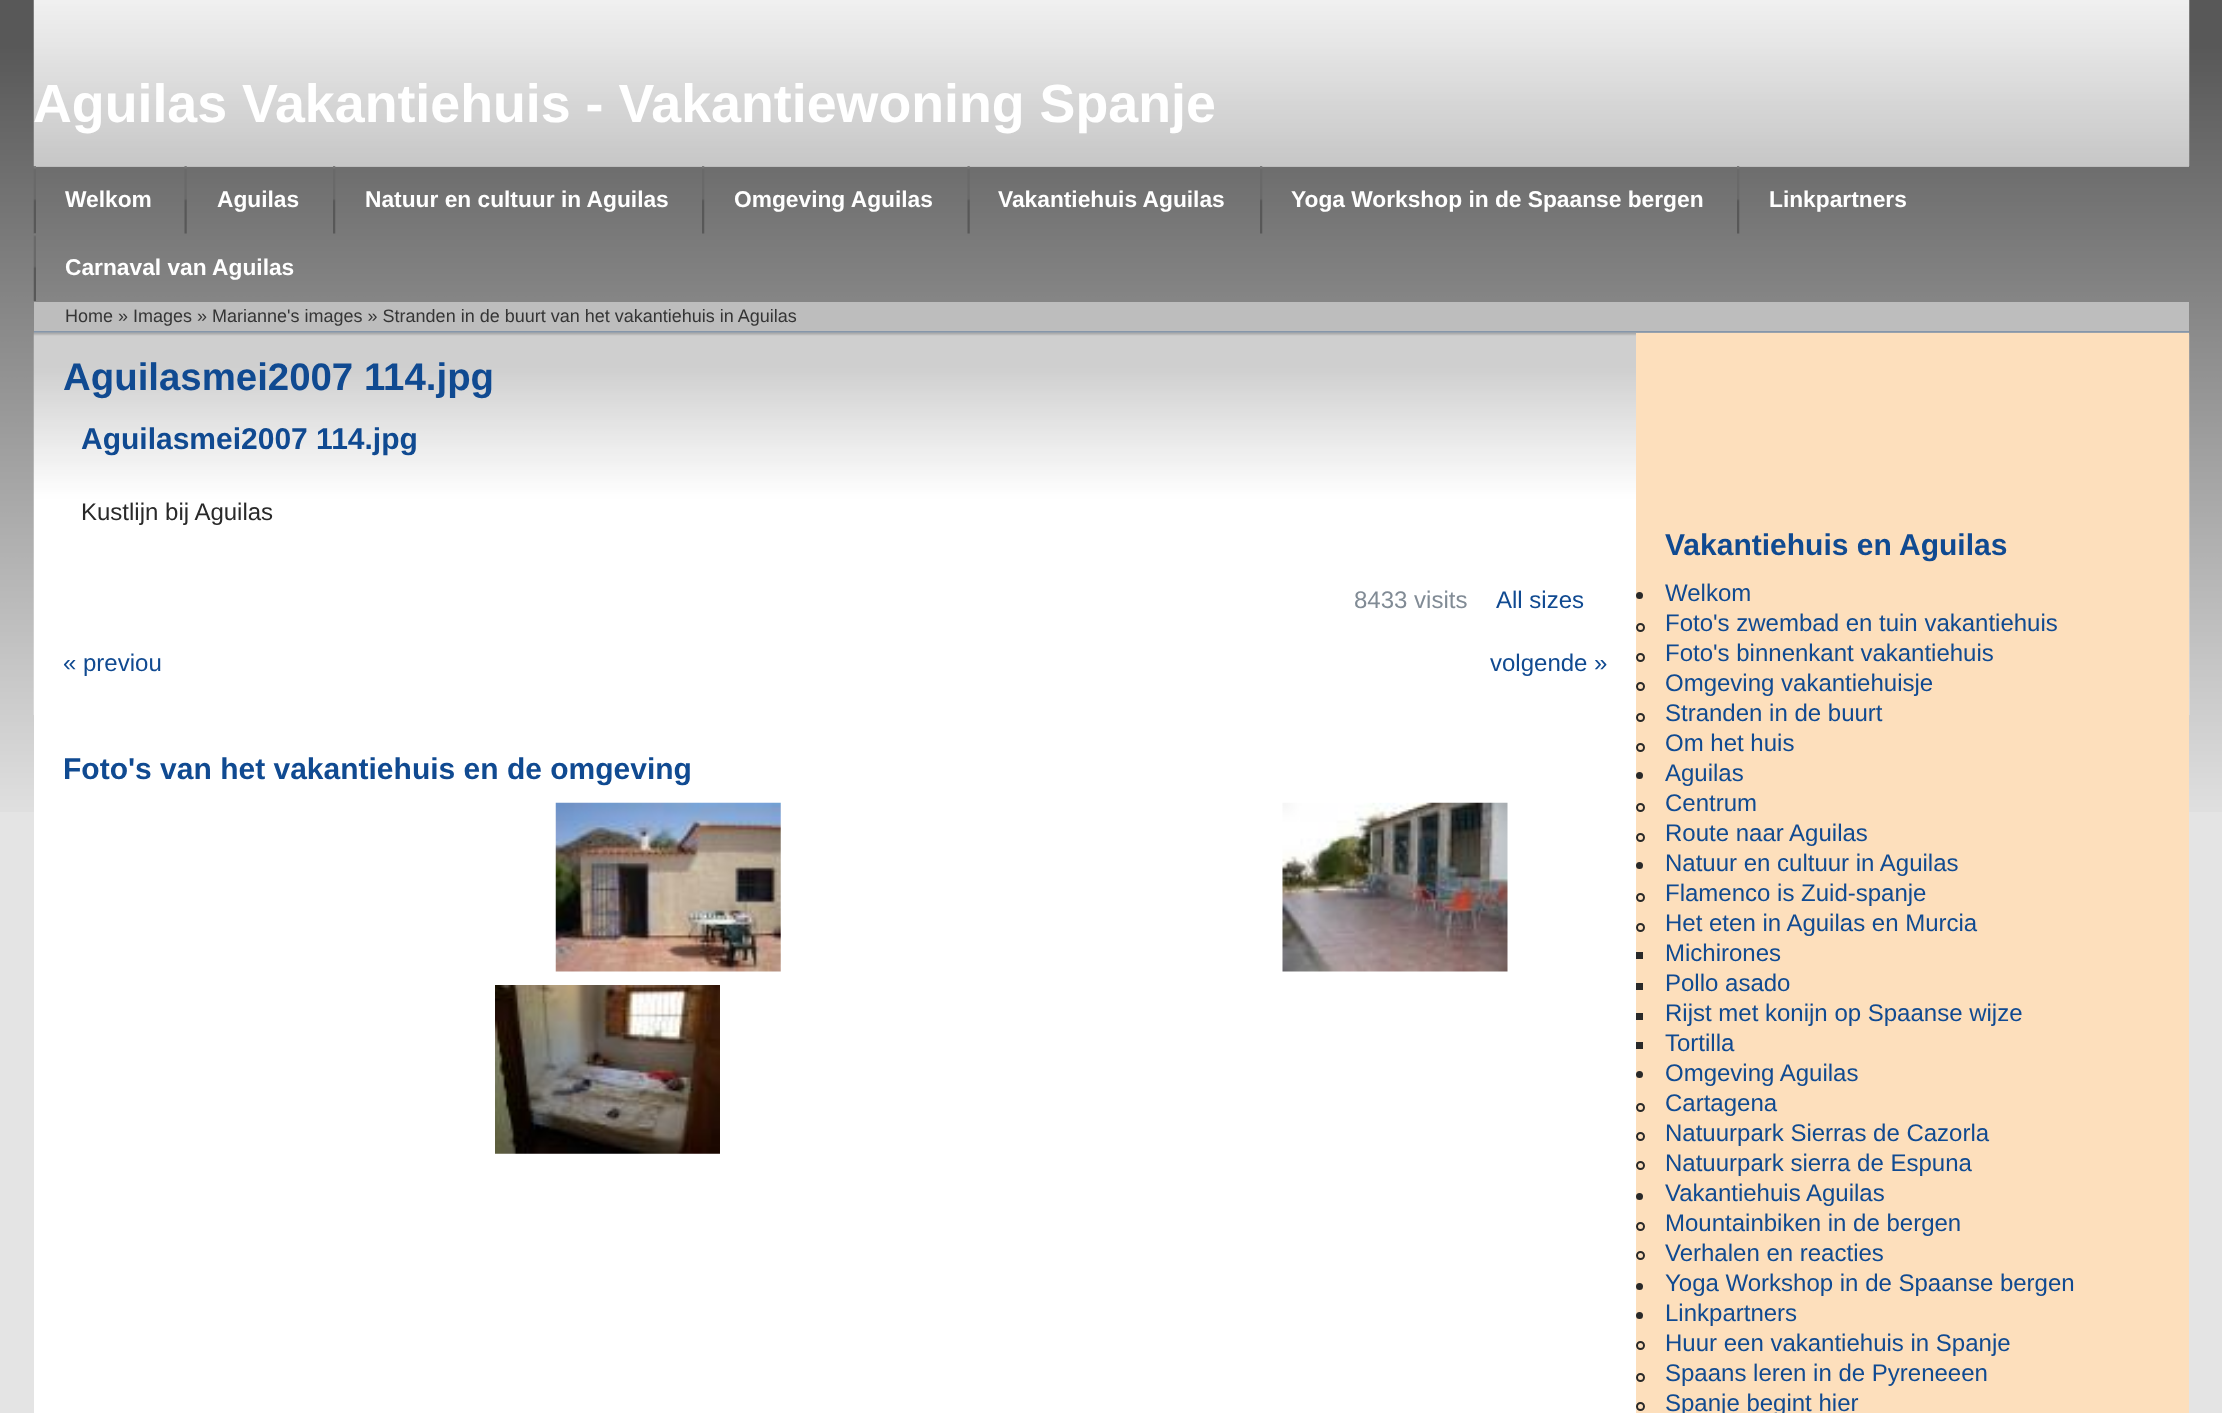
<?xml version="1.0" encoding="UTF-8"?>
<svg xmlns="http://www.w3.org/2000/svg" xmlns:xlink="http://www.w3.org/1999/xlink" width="2222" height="1413">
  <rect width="100%" height="100%" fill="#e4e4e4" />
  <image x="0" y="0" width="2222" height="812" xlink:href="image1.png" />
  <rect x="36" y="166" width="2153" height="1" fill="#bdbdbd" />
  <image x="33" y="0" width="2157" height="166" xlink:href="image2.png" />
  <image x="33" y="166" width="3" height="68" xlink:href="image3.png" />
  <image x="184" y="166" width="3" height="68" xlink:href="image4.png" />
  <image x="333" y="166" width="3" height="68" xlink:href="image5.png" />
  <image x="702" y="166" width="3" height="68" xlink:href="image5.png" />
  <image x="967" y="166" width="3" height="68" xlink:href="image4.png" />
  <image x="1260" y="166" width="3" height="68" xlink:href="image5.png" />
  <image x="1737" y="166" width="3" height="68" xlink:href="image5.png" />
  <image x="33" y="233" width="3" height="68" xlink:href="image6.png" />
  <rect x="34" y="302" width="2155" height="29" fill="#bdbdbd" />
  <rect x="34" y="331" width="2155" height="2" fill="#8596aa" />
  <rect x="34" y="715" width="1602" height="698" fill="#ffffff" />
  <image x="33" y="332" width="2157" height="383" xlink:href="image7.png" />
  <image x="555" y="802" width="226" height="170" xlink:href="image8.png" />
  <image x="1282" y="802" width="226" height="170" xlink:href="image9.png" />
  <image x="495" y="985" width="225" height="169" xlink:href="image10.png" />
  <rect x="1636" y="333" width="553" height="1080" fill="#fddfbc" />
  <circle cx="1639.5" cy="595.5" r="3.5" fill="#292929" />
  <circle cx="1640.5" cy="627.5" r="3.5" fill="none" stroke="#292929" stroke-width="2" />
  <circle cx="1640.5" cy="657.5" r="3.5" fill="none" stroke="#292929" stroke-width="2" />
  <circle cx="1640.5" cy="686.5" r="3.5" fill="none" stroke="#292929" stroke-width="2" />
  <circle cx="1640.5" cy="717.5" r="3.5" fill="none" stroke="#292929" stroke-width="2" />
  <circle cx="1640.5" cy="747.5" r="3.5" fill="none" stroke="#292929" stroke-width="2" />
  <circle cx="1639.5" cy="775.5" r="3.5" fill="#292929" />
  <circle cx="1640.5" cy="807.5" r="3.5" fill="none" stroke="#292929" stroke-width="2" />
  <circle cx="1640.5" cy="837.5" r="3.5" fill="none" stroke="#292929" stroke-width="2" />
  <circle cx="1639.5" cy="865.5" r="3.5" fill="#292929" />
  <circle cx="1640.5" cy="897.5" r="3.5" fill="none" stroke="#292929" stroke-width="2" />
  <circle cx="1640.5" cy="927.5" r="3.5" fill="none" stroke="#292929" stroke-width="2" />
  <rect x="1636" y="952" width="7" height="7" fill="#292929" />
  <rect x="1636" y="983" width="7" height="7" fill="#292929" />
  <rect x="1636" y="1013" width="7" height="7" fill="#292929" />
  <rect x="1636" y="1042" width="7" height="7" fill="#292929" />
  <circle cx="1639.5" cy="1074.5" r="3.5" fill="#292929" />
  <circle cx="1640.5" cy="1107.5" r="3.5" fill="none" stroke="#292929" stroke-width="2" />
  <circle cx="1640.5" cy="1136.5" r="3.5" fill="none" stroke="#292929" stroke-width="2" />
  <circle cx="1640.5" cy="1165.5" r="3.5" fill="none" stroke="#292929" stroke-width="2" />
  <circle cx="1639.5" cy="1196.5" r="3.5" fill="#292929" />
  <circle cx="1640.5" cy="1226.5" r="3.5" fill="none" stroke="#292929" stroke-width="2" />
  <circle cx="1640.5" cy="1255.5" r="3.5" fill="none" stroke="#292929" stroke-width="2" />
  <circle cx="1639.5" cy="1286.5" r="3.5" fill="#292929" />
  <circle cx="1639.5" cy="1315.5" r="3.5" fill="#292929" />
  <circle cx="1640.5" cy="1345.5" r="3.5" fill="none" stroke="#292929" stroke-width="2" />
  <circle cx="1640.5" cy="1377.5" r="3.5" fill="none" stroke="#292929" stroke-width="2" />
  <circle cx="1640.5" cy="1406.5" r="3.5" fill="none" stroke="#292929" stroke-width="2" />
  <text x="33" y="122" style="font-family: Liberation Sans; font-size: 53.75px; font-weight: bold; fill: #ffffff">Aguilas Vakantiehuis - Vakantiewoning Spanje</text>
  <text x="65" y="207" style="font-family: Liberation Sans; font-size: 22.75px; font-weight: bold; fill: #ffffff">Welkom</text>
  <text x="217" y="207" style="font-family: Liberation Sans; font-size: 22.75px; font-weight: bold; fill: #ffffff">Aguilas</text>
  <text x="365" y="207" style="font-family: Liberation Sans; font-size: 22.75px; font-weight: bold; fill: #ffffff">Natuur en cultuur in Aguilas</text>
  <text x="734" y="207" style="font-family: Liberation Sans; font-size: 22.75px; font-weight: bold; fill: #ffffff">Omgeving Aguilas</text>
  <text x="998" y="207" style="font-family: Liberation Sans; font-size: 22.75px; font-weight: bold; fill: #ffffff">Vakantiehuis Aguilas</text>
  <text x="1291" y="207" style="font-family: Liberation Sans; font-size: 22.75px; font-weight: bold; fill: #ffffff">Yoga Workshop in de Spaanse bergen</text>
  <text x="1769" y="207" style="font-family: Liberation Sans; font-size: 22.75px; font-weight: bold; fill: #ffffff">Linkpartners</text>
  <text x="65" y="275" style="font-family: Liberation Sans; font-size: 22.75px; font-weight: bold; fill: #ffffff">Carnaval van Aguilas</text>
  <text x="65" y="322" style="font-family: Liberation Sans; font-size: 18px; fill: #353535">Home » Images » Marianne's images » Stranden in de buurt van het vakantiehuis in Aguilas</text>
  <text x="63" y="390" style="font-family: Liberation Sans; font-size: 38.4px; font-weight: bold; fill: #104a91">Aguilasmei2007 114.jpg</text>
  <text x="81" y="449" style="font-family: Liberation Sans; font-size: 30px; font-weight: bold; fill: #104a91">Aguilasmei2007 114.jpg</text>
  <text x="81" y="520" style="font-family: Liberation Sans; font-size: 24px; fill: #292929">Kustlijn bij Aguilas</text>
  <text x="1354" y="608" style="font-family: Liberation Sans; font-size: 24px; fill: #818b95">8433 visits</text>
  <text x="1496" y="608" style="font-family: Liberation Sans; font-size: 24px; fill: #104a91">All sizes</text>
  <text x="63" y="671" style="font-family: Liberation Sans; font-size: 24px; fill: #104a91">« previou</text>
  <text x="1490" y="671" style="font-family: Liberation Sans; font-size: 24px; fill: #104a91">volgende »</text>
  <text x="63" y="779" style="font-family: Liberation Sans; font-size: 30px; font-weight: bold; fill: #104a91">Foto's van het vakantiehuis en de omgeving</text>
  <text x="1665" y="555" style="font-family: Liberation Sans; font-size: 30px; font-weight: bold; fill: #104a91">Vakantiehuis en Aguilas</text>
  <text x="1665" y="601" style="font-family: Liberation Sans; font-size: 24px; fill: #104a91">Welkom</text>
  <text x="1665" y="631" style="font-family: Liberation Sans; font-size: 24px; fill: #104a91">Foto's zwembad en tuin vakantiehuis</text>
  <text x="1665" y="661" style="font-family: Liberation Sans; font-size: 24px; fill: #104a91">Foto's binnenkant vakantiehuis</text>
  <text x="1665" y="691" style="font-family: Liberation Sans; font-size: 24px; fill: #104a91">Omgeving vakantiehuisje</text>
  <text x="1665" y="721" style="font-family: Liberation Sans; font-size: 24px; fill: #104a91">Stranden in de buurt</text>
  <text x="1665" y="751" style="font-family: Liberation Sans; font-size: 24px; fill: #104a91">Om het huis</text>
  <text x="1665" y="781" style="font-family: Liberation Sans; font-size: 24px; fill: #104a91">Aguilas</text>
  <text x="1665" y="811" style="font-family: Liberation Sans; font-size: 24px; fill: #104a91">Centrum</text>
  <text x="1665" y="841" style="font-family: Liberation Sans; font-size: 24px; fill: #104a91">Route naar Aguilas</text>
  <text x="1665" y="871" style="font-family: Liberation Sans; font-size: 24px; fill: #104a91">Natuur en cultuur in Aguilas</text>
  <text x="1665" y="901" style="font-family: Liberation Sans; font-size: 24px; fill: #104a91">Flamenco is Zuid-spanje</text>
  <text x="1665" y="931" style="font-family: Liberation Sans; font-size: 24px; fill: #104a91">Het eten in Aguilas en Murcia</text>
  <text x="1665" y="961" style="font-family: Liberation Sans; font-size: 24px; fill: #104a91">Michirones</text>
  <text x="1665" y="991" style="font-family: Liberation Sans; font-size: 24px; fill: #104a91">Pollo asado</text>
  <text x="1665" y="1021" style="font-family: Liberation Sans; font-size: 24px; fill: #104a91">Rijst met konijn op Spaanse wijze</text>
  <text x="1665" y="1051" style="font-family: Liberation Sans; font-size: 24px; fill: #104a91">Tortilla</text>
  <text x="1665" y="1081" style="font-family: Liberation Sans; font-size: 24px; fill: #104a91">Omgeving Aguilas</text>
  <text x="1665" y="1111" style="font-family: Liberation Sans; font-size: 24px; fill: #104a91">Cartagena</text>
  <text x="1665" y="1141" style="font-family: Liberation Sans; font-size: 24px; fill: #104a91">Natuurpark Sierras de Cazorla</text>
  <text x="1665" y="1171" style="font-family: Liberation Sans; font-size: 24px; fill: #104a91">Natuurpark sierra de Espuna</text>
  <text x="1665" y="1201" style="font-family: Liberation Sans; font-size: 24px; fill: #104a91">Vakantiehuis Aguilas</text>
  <text x="1665" y="1231" style="font-family: Liberation Sans; font-size: 24px; fill: #104a91">Mountainbiken in de bergen</text>
  <text x="1665" y="1261" style="font-family: Liberation Sans; font-size: 24px; fill: #104a91">Verhalen en reacties</text>
  <text x="1665" y="1291" style="font-family: Liberation Sans; font-size: 24px; fill: #104a91">Yoga Workshop in de Spaanse bergen</text>
  <text x="1665" y="1321" style="font-family: Liberation Sans; font-size: 24px; fill: #104a91">Linkpartners</text>
  <text x="1665" y="1351" style="font-family: Liberation Sans; font-size: 24px; fill: #104a91">Huur een vakantiehuis in Spanje</text>
  <text x="1665" y="1381" style="font-family: Liberation Sans; font-size: 24px; fill: #104a91">Spaans leren in de Pyreneeen</text>
  <text x="1665" y="1411" style="font-family: Liberation Sans; font-size: 24px; fill: #104a91">Spanje begint hier</text>
</svg>
